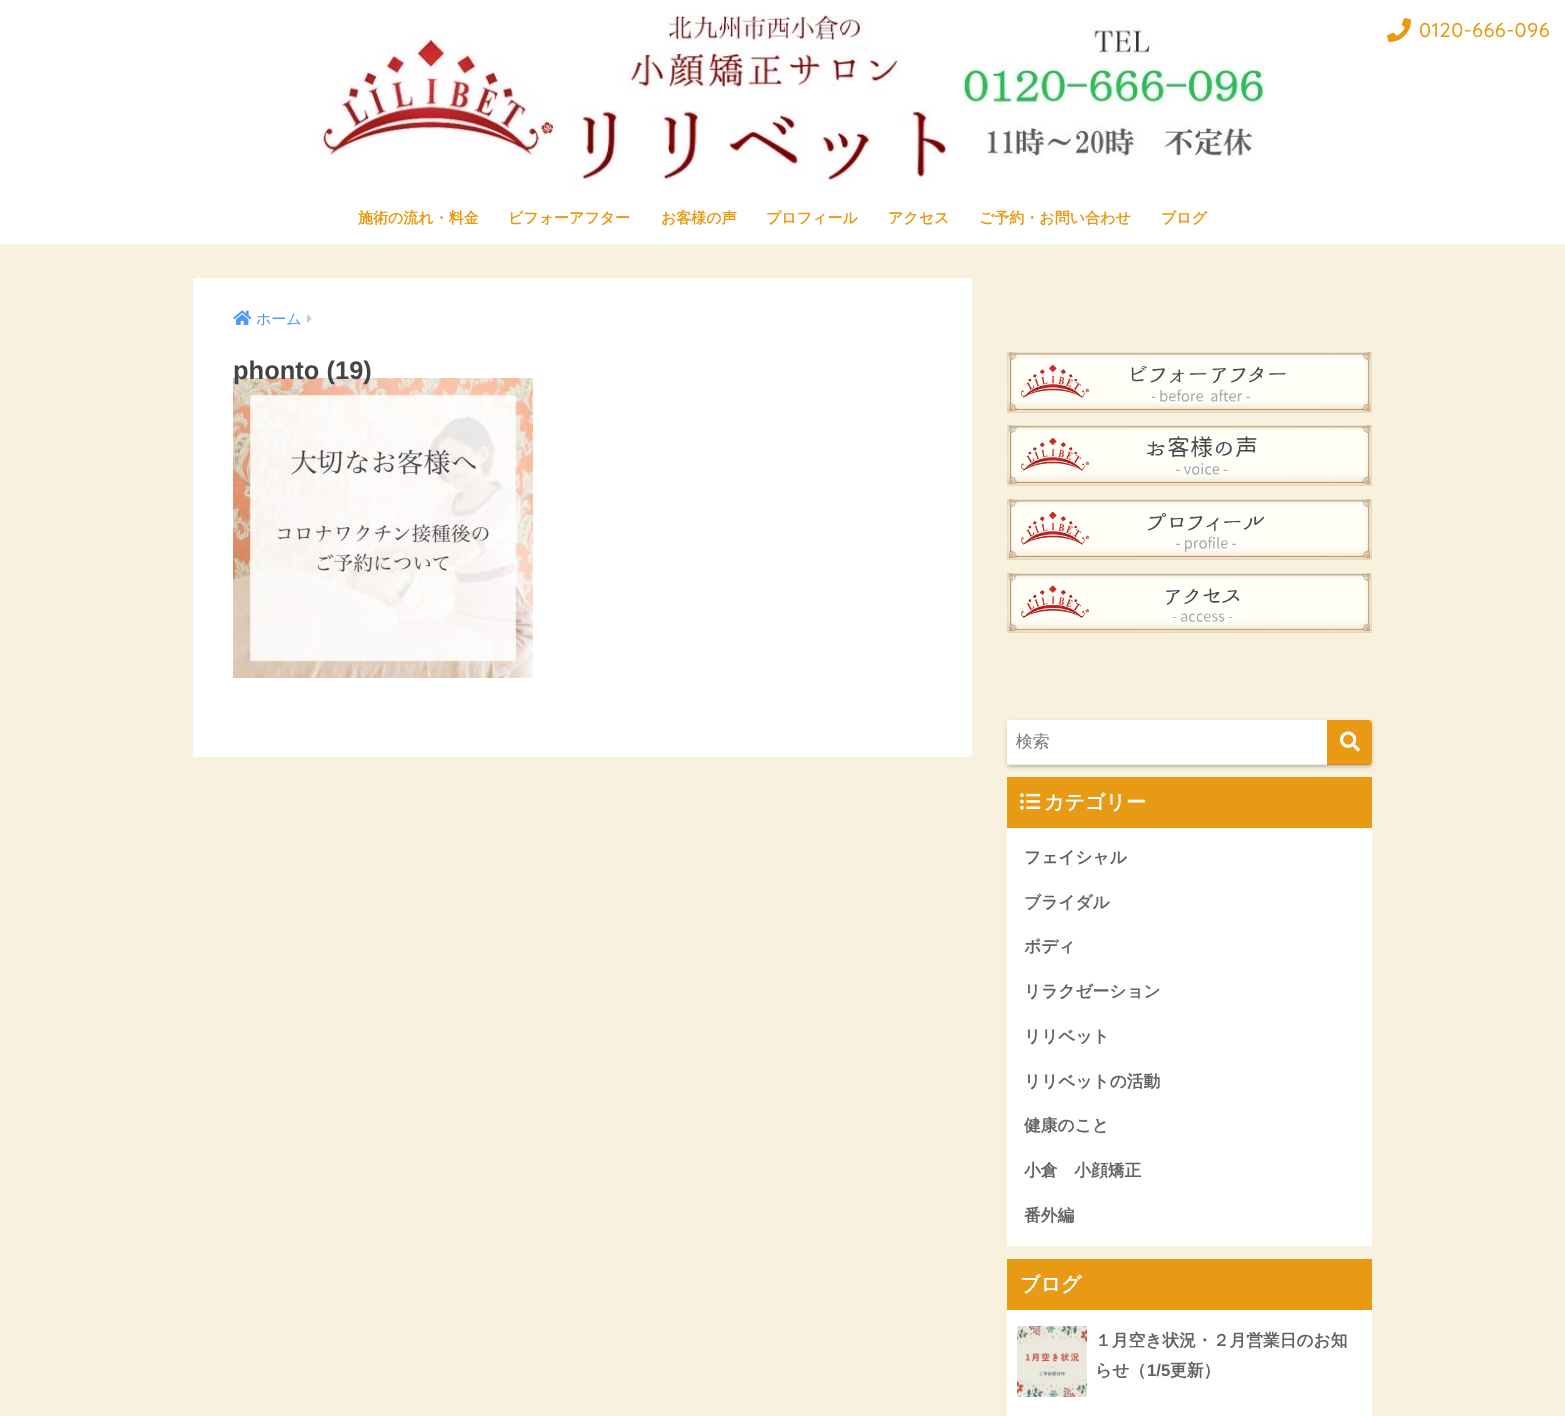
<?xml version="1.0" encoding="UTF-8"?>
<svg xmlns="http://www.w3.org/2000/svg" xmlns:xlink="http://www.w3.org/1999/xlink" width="1565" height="1416">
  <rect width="100%" height="100%" fill="#f7f1de" />
  <rect width="1565" height="244" fill="#ffffff" />
  <image x="1387" y="18" width="25" height="24" xlink:href="image1.png" />
  <image x="319" y="15" width="945" height="172" xlink:href="image2.png" />
  <rect x="193" y="278" width="779" height="479" rx="3" fill="#ffffff" />
  <image x="233" y="310" width="19" height="15" xlink:href="image3.png" />
  <image x="307" y="314" width="5" height="9" xlink:href="image4.png" />
  <image x="233" y="378" width="300" height="300" xlink:href="image5.png" />
  <image x="1007" y="352" width="365" height="61" xlink:href="image6.png" />
  <image x="1007" y="425" width="365" height="61" xlink:href="image7.png" />
  <image x="1007" y="499" width="365" height="61" xlink:href="image8.png" />
  <image x="1007" y="573" width="365" height="60" xlink:href="image9.png" />
  <rect x="1009" y="725" width="361" height="41" rx="1" fill="#000000" fill-opacity="0.15" filter="blur(1.5px)" />
  <rect x="1007" y="722" width="365" height="45" rx="3" fill="#000000" fill-opacity="0.15" filter="blur(2.5px)" />
  <rect x="1007" y="720" width="365" height="45" rx="3" fill="#ffffff" />
  <rect x="1009" y="764" width="362" height="1" fill="#efefef" />
  <path d="M 1327 720 h 42 c 1.5 0 3 1.5 3 3 v 39 c 0 1.5 -1.5 3 -3 3 h -42 z" fill="#e89a14" />
  <rect x="1327" y="764" width="44" height="1" fill="#000000" fill-opacity="0.1" />
  <image x="1340" y="731" width="20" height="21" xlink:href="image10.png" />
  <rect x="1007" y="828" width="365" height="418" fill="#ffffff" />
  <rect x="1007" y="777" width="365" height="51" fill="#e89a14" />
  <image x="1020" y="793" width="21" height="17" xlink:href="image11.png" />
  <rect x="1007" y="1310" width="365" height="106" fill="#ffffff" />
  <rect x="1007" y="1259" width="365" height="51" fill="#e89a14" />
  <image x="1017" y="1326" width="70" height="71" xlink:href="image12.png" />
  <text x="1419" y="37" style="font-family: Quicksand; font-size: 20px; font-weight: 500; letter-spacing: 0.5px; fill: #e89a14">0120-666-096</text>
  <text x="358" y="223" style="font-family: WenQuanYi Zen Hei; font-size: 15px; font-weight: bold; fill: #e89a14">施術の流れ・料金</text>
  <text x="508" y="223" style="font-family: WenQuanYi Zen Hei; font-size: 15px; font-weight: bold; fill: #e89a14">ビフォーアフター</text>
  <text x="661" y="223" style="font-family: WenQuanYi Zen Hei; font-size: 15px; font-weight: bold; fill: #e89a14">お客様の声</text>
  <text x="766" y="223" style="font-family: WenQuanYi Zen Hei; font-size: 15px; font-weight: bold; fill: #e89a14">プロフィール</text>
  <text x="888" y="223" style="font-family: WenQuanYi Zen Hei; font-size: 15px; font-weight: bold; fill: #e89a14">アクセス</text>
  <text x="979" y="223" style="font-family: WenQuanYi Zen Hei; font-size: 15px; font-weight: bold; fill: #e89a14">ご予約・お問い合わせ</text>
  <text x="1161" y="223" style="font-family: WenQuanYi Zen Hei; font-size: 15px; font-weight: bold; fill: #e89a14">ブログ</text>
  <text x="256" y="324" style="font-family: WenQuanYi Zen Hei; font-size: 15px; font-weight: 500; fill: #4f96f6">ホーム</text>
  <text x="233" y="379" style="font-family: Liberation Sans; font-size: 25.5px; font-weight: bold; fill: #444444">phonto (19)</text>
  <text x="1016" y="747" style="font-family: WenQuanYi Zen Hei; font-size: 16.75px; font-weight: 500; fill: #757575">検索</text>
  <text x="1044" y="809" style="font-family: WenQuanYi Zen Hei; font-size: 20px; font-weight: bold; fill: #ffffff">カテゴリー</text>
  <text x="1024" y="863" style="font-family: WenQuanYi Zen Hei; font-size: 16.75px; font-weight: bold; fill: #626262">フェイシャル</text>
  <text x="1024" y="908" style="font-family: WenQuanYi Zen Hei; font-size: 16.75px; font-weight: bold; fill: #626262">ブライダル</text>
  <text x="1024" y="952" style="font-family: WenQuanYi Zen Hei; font-size: 16.75px; font-weight: bold; fill: #626262">ボディ</text>
  <text x="1024" y="997" style="font-family: WenQuanYi Zen Hei; font-size: 16.75px; font-weight: bold; fill: #626262">リラクゼーション</text>
  <text x="1024" y="1042" style="font-family: WenQuanYi Zen Hei; font-size: 16.75px; font-weight: bold; fill: #626262">リリベット</text>
  <text x="1024" y="1087" style="font-family: WenQuanYi Zen Hei; font-size: 16.75px; font-weight: bold; fill: #626262">リリベットの活動</text>
  <text x="1024" y="1131" style="font-family: WenQuanYi Zen Hei; font-size: 16.75px; font-weight: bold; fill: #626262">健康のこと</text>
  <text x="1024" y="1176" style="font-family: WenQuanYi Zen Hei; font-size: 16.75px; font-weight: bold; fill: #626262">小倉　小顔矯正</text>
  <text x="1024" y="1221" style="font-family: WenQuanYi Zen Hei; font-size: 16.75px; font-weight: bold; fill: #626262">番外編</text>
  <text x="1020" y="1291" style="font-family: WenQuanYi Zen Hei; font-size: 20px; font-weight: bold; fill: #ffffff">ブログ</text>
  <text x="1095" y="1346" style="font-family: WenQuanYi Zen Hei; font-size: 16.75px; font-weight: bold; fill: #626262">１月空き状況・２月営業日のお知</text>
  <text x="1095" y="1376" style="font-family: WenQuanYi Zen Hei; font-size: 16.75px; font-weight: bold; fill: #626262">らせ（</text>
  <text x="1147" y="1376" style="font-family: Liberation Sans; font-size: 16.75px; font-weight: bold; fill: #626262">1/5</text>
  <text x="1170" y="1376" style="font-family: WenQuanYi Zen Hei; font-size: 16.75px; font-weight: bold; fill: #626262">更新）</text>
</svg>
